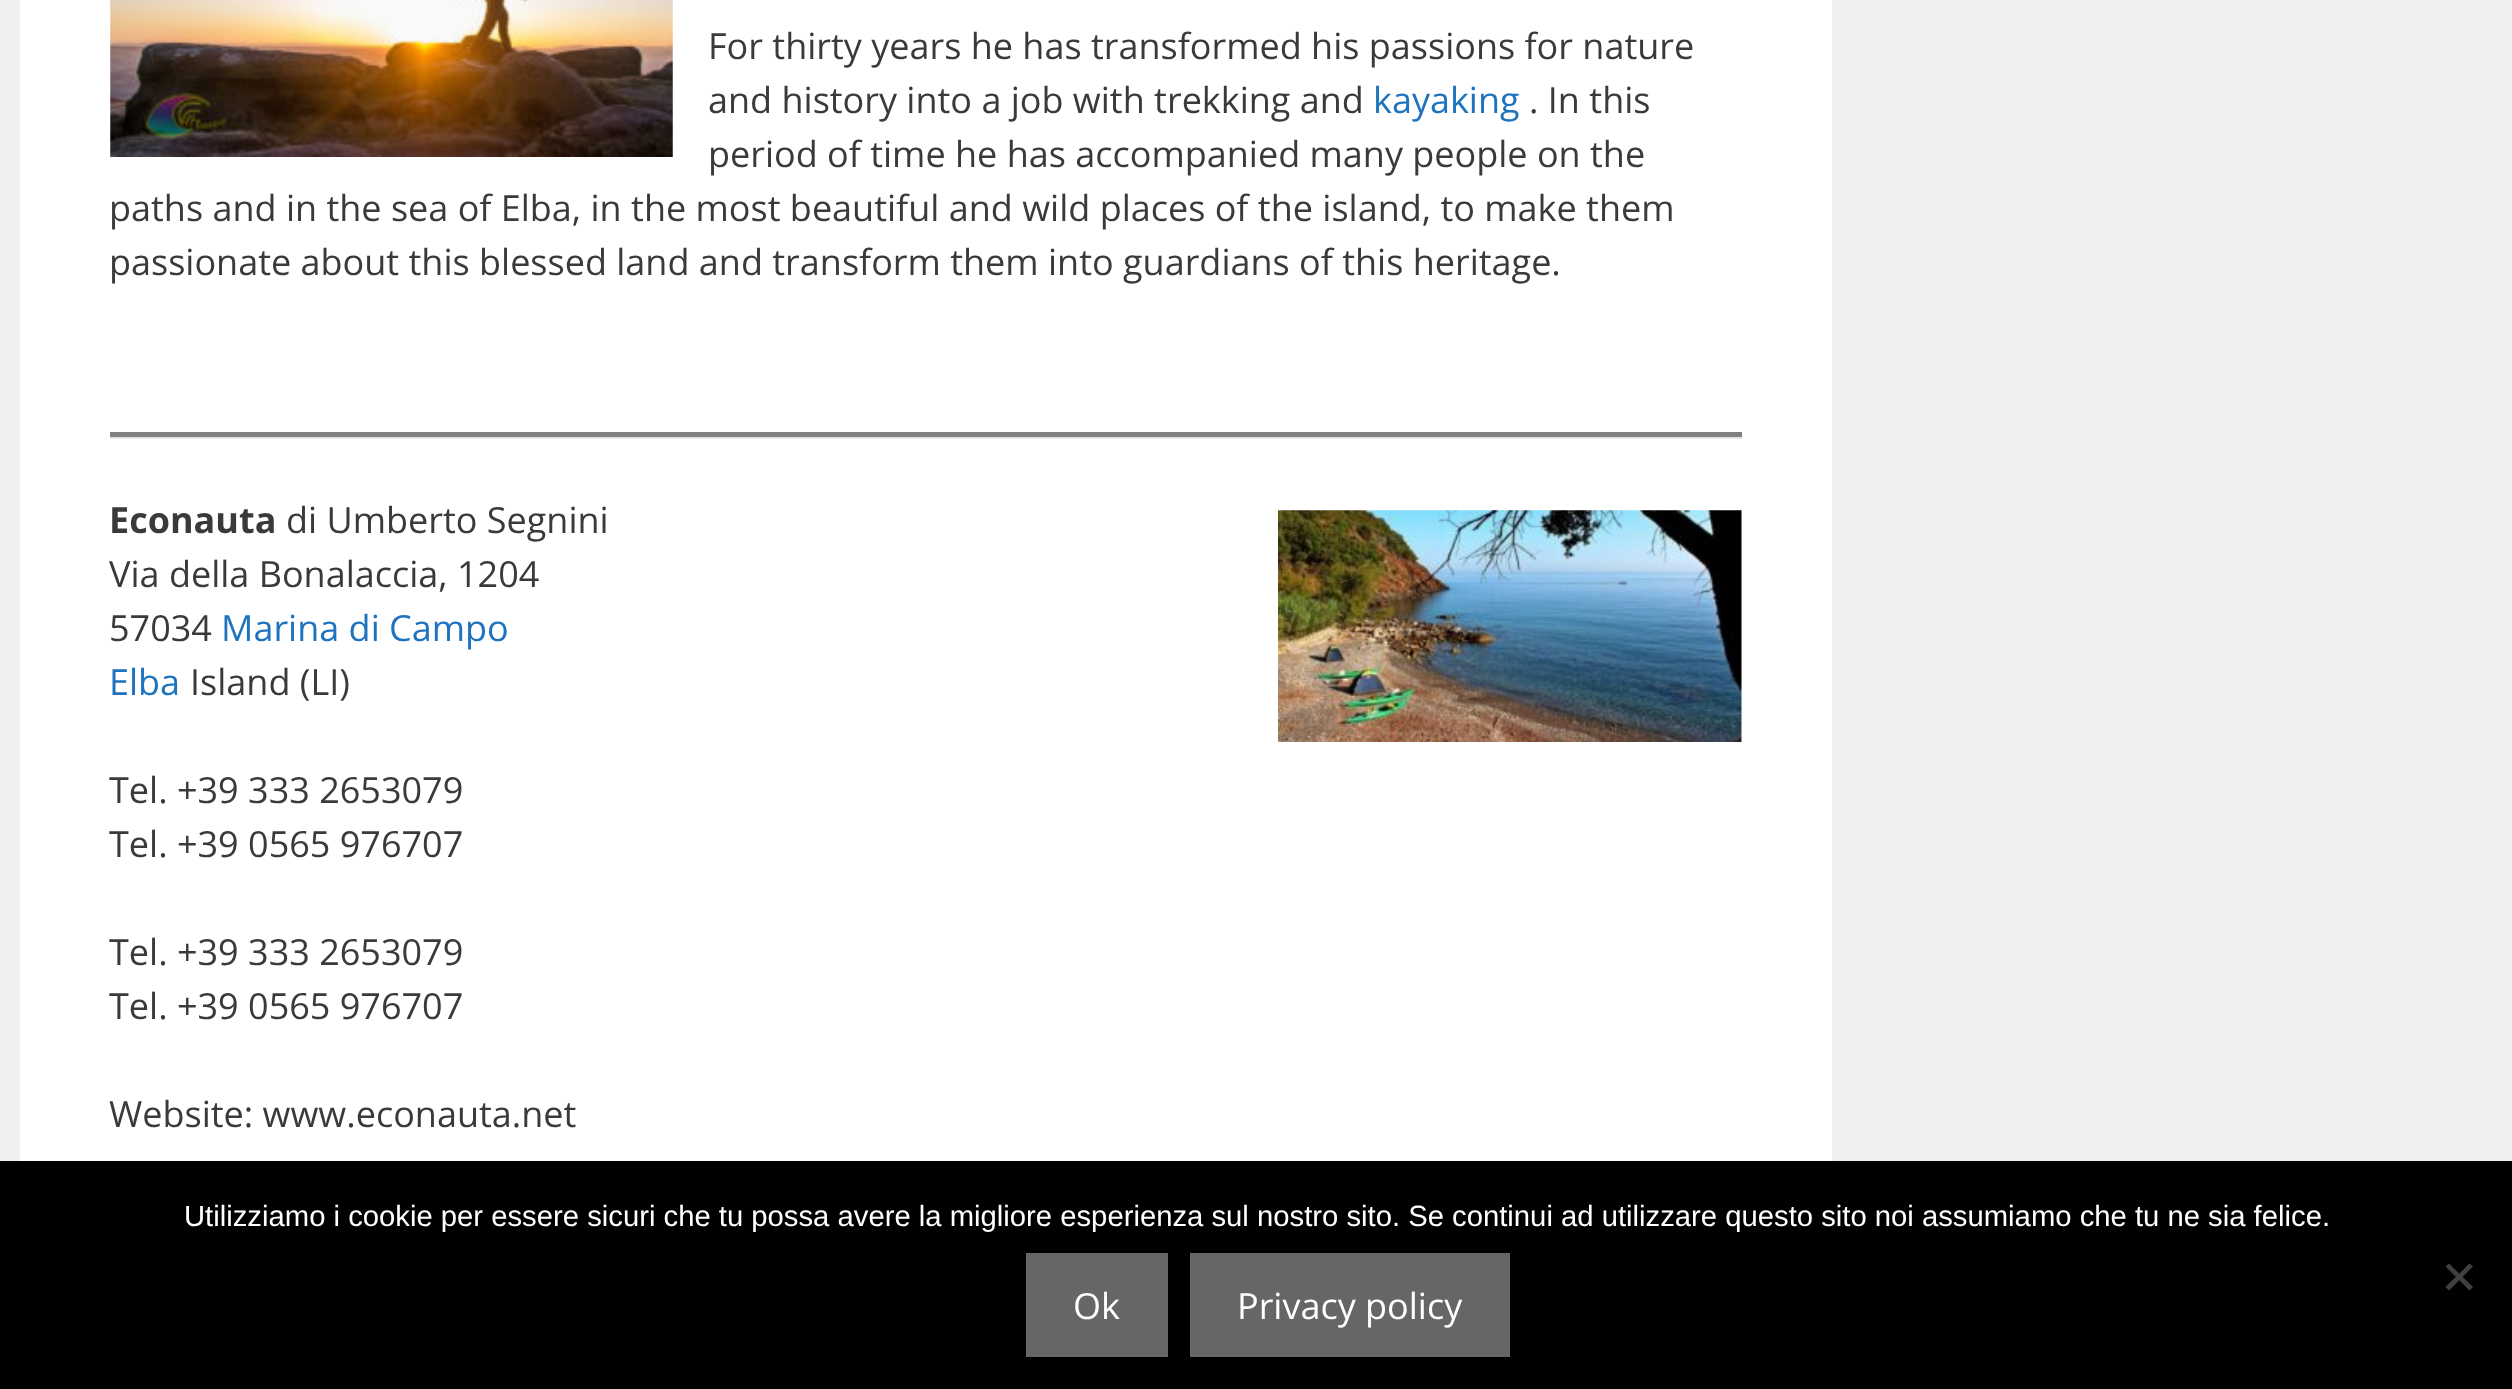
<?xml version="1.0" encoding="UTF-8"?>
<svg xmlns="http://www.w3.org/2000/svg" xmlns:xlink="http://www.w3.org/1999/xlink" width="2512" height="1389">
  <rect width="100%" height="100%" fill="#efefef" />
  <rect x="20" width="1812" height="1161" fill="#ffffff" />
  <image x="110" y="0" width="563" height="157" xlink:href="image1.png" />
  <rect x="110" y="437" width="1632" height="2" fill="#e6e6e6" />
  <rect x="110" y="432" width="1632" height="5" fill="#808080" />
  <image x="1278" y="510" width="464" height="232" xlink:href="image2.png" />
  <rect y="1161" width="2512" height="228" fill="#000000" />
  <path d="M 2469.5 1263.5 l 3.5 3 l -24 24 l -3.5 -3.5 z" fill="#404040" />
  <path d="M 2445.5 1266.5 l 3.5 -3 l 24 23.5 l -3.5 3.5 z" fill="#404040" />
  <rect x="1026" y="1253" width="142" height="104" fill="#666666" />
  <rect x="1190" y="1253" width="320" height="104" fill="#666666" />
  <text x="708" y="59" style="font-family: Open Sans; font-size: 36px; fill: #3a3a3a">For thirty years he has transformed his passions for nature</text>
  <text x="708" y="113" style="font-family: Open Sans; font-size: 36px; fill: #3a3a3a">and history into a job with trekking and</text>
  <text x="1373" y="113" style="font-family: Open Sans; font-size: 36px; fill: #1e73be">kayaking</text>
  <text x="1529" y="113" style="font-family: Open Sans; font-size: 36px; fill: #3a3a3a">. In this</text>
  <text x="708" y="167" style="font-family: Open Sans; font-size: 36px; fill: #3a3a3a">period of time he has accompanied many people on the</text>
  <text x="109" y="221" style="font-family: Open Sans; font-size: 36px; fill: #3a3a3a">paths and in the sea of Elba, in the most beautiful and wild places of the island, to make them</text>
  <text x="109" y="275" style="font-family: Open Sans; font-size: 36px; fill: #3a3a3a">passionate about this blessed land and transform them into guardians of this heritage.</text>
  <text x="109" y="533" style="font-family: Open Sans; font-size: 36px; font-weight: bold; fill: #3a3a3a">Econauta</text>
  <text x="286" y="533" style="font-family: Open Sans; font-size: 36px; fill: #3a3a3a">di Umberto Segnini</text>
  <text x="109" y="587" style="font-family: Open Sans; font-size: 36px; fill: #3a3a3a">Via della Bonalaccia, 1204</text>
  <text x="109" y="641" style="font-family: Open Sans; font-size: 36px; fill: #3a3a3a">57034</text>
  <text x="221" y="641" style="font-family: Open Sans; font-size: 36px; fill: #1e73be">Marina di Campo</text>
  <text x="109" y="695" style="font-family: Open Sans; font-size: 36px; fill: #1e73be">Elba</text>
  <text x="190" y="695" style="font-family: Open Sans; font-size: 36px; fill: #3a3a3a">Island (LI)</text>
  <text x="109" y="803" style="font-family: Open Sans; font-size: 36px; fill: #3a3a3a">Tel. +39 333 2653079</text>
  <text x="109" y="857" style="font-family: Open Sans; font-size: 36px; fill: #3a3a3a">Tel. +39 0565 976707</text>
  <text x="109" y="965" style="font-family: Open Sans; font-size: 36px; fill: #3a3a3a">Tel. +39 333 2653079</text>
  <text x="109" y="1019" style="font-family: Open Sans; font-size: 36px; fill: #3a3a3a">Tel. +39 0565 976707</text>
  <text x="109" y="1127" style="font-family: Open Sans; font-size: 36px; fill: #3a3a3a">Website: www.econauta.net</text>
  <text x="184" y="1226" style="font-family: Liberation Sans; font-size: 29.25px; fill: #ffffff">Utilizziamo i cookie per essere sicuri che tu possa avere la migliore esperienza sul nostro sito. Se continui ad utilizzare questo sito noi assumiamo che tu ne sia felice.</text>
  <text x="1073" y="1319" style="font-family: Open Sans; font-size: 36px; fill: #ffffff">Ok</text>
  <text x="1237" y="1319" style="font-family: Open Sans; font-size: 36px; fill: #ffffff">Privacy policy</text>
</svg>
